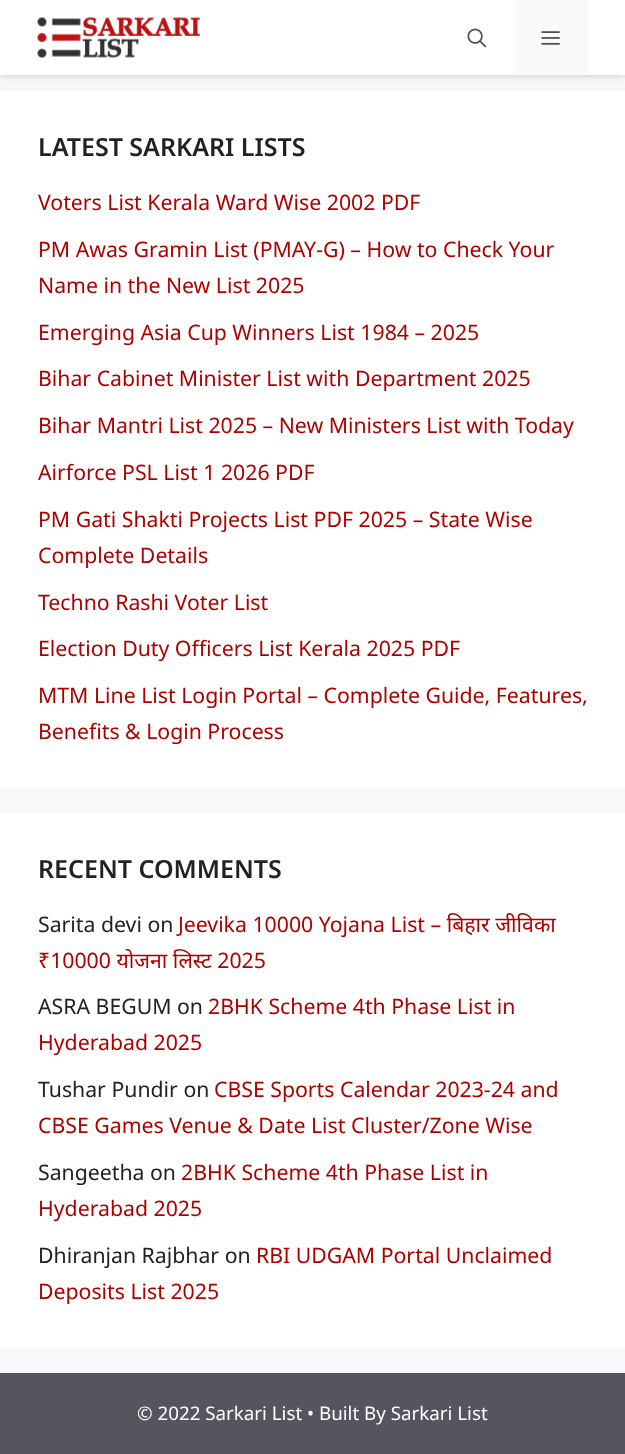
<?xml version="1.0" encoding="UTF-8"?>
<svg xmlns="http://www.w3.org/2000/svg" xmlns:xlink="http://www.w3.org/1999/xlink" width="625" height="1454">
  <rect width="100%" height="100%" fill="#f7f8f9" />
  <rect y="1" width="625" height="75" fill="#cccccc" filter="blur(3px)" />
  <rect width="625" height="75" fill="#ffffff" />
  <image x="37" y="17" width="163" height="41" xlink:href="image1.png" />
  <image x="467" y="28" width="20" height="20" xlink:href="image2.png" />
  <rect x="514" width="74" height="75" fill="#fafafa" />
  <image x="541" y="31" width="19" height="14" xlink:href="image3.png" />
  <rect y="91" width="625" height="697" fill="#ffffff" />
  <rect y="813" width="625" height="535" fill="#ffffff" />
  <rect y="1373" width="625" height="81" fill="#55555e" />
  <text x="38" y="156" style="font-family: Noto Sans; font-size: 25px; font-weight: 600; fill: #222222">LATEST SARKARI LISTS</text>
  <text x="38" y="210" style="font-family: Noto Sans; font-size: 21.25px; fill: #af0000">Voters List Kerala Ward Wise 2002 PDF</text>
  <text x="38" y="257" style="font-family: Noto Sans; font-size: 21.25px; fill: #af0000">PM Awas Gramin List (PMAY-G) – How to Check Your</text>
  <text x="38" y="293" style="font-family: Noto Sans; font-size: 21.25px; fill: #af0000">Name in the New List 2025</text>
  <text x="38" y="340" style="font-family: Noto Sans; font-size: 21.25px; fill: #af0000">Emerging Asia Cup Winners List 1984 – 2025</text>
  <text x="38" y="386" style="font-family: Noto Sans; font-size: 21.25px; fill: #af0000">Bihar Cabinet Minister List with Department 2025</text>
  <text x="38" y="433" style="font-family: Noto Sans; font-size: 21.25px; fill: #af0000">Bihar Mantri List 2025 – New Ministers List with Today</text>
  <text x="38" y="480" style="font-family: Noto Sans; font-size: 21.25px; fill: #af0000">Airforce PSL List 1 2026 PDF</text>
  <text x="38" y="527" style="font-family: Noto Sans; font-size: 21.25px; fill: #af0000">PM Gati Shakti Projects List PDF 2025 – State Wise</text>
  <text x="38" y="563" style="font-family: Noto Sans; font-size: 21.25px; fill: #af0000">Complete Details</text>
  <text x="38" y="610" style="font-family: Noto Sans; font-size: 21.25px; fill: #af0000">Techno Rashi Voter List</text>
  <text x="38" y="656" style="font-family: Noto Sans; font-size: 21.25px; fill: #af0000">Election Duty Officers List Kerala 2025 PDF</text>
  <text x="38" y="703" style="font-family: Noto Sans; font-size: 21.25px; fill: #af0000">MTM Line List Login Portal – Complete Guide, Features,</text>
  <text x="38" y="739" style="font-family: Noto Sans; font-size: 21.25px; fill: #af0000">Benefits &amp; Login Process</text>
  <text x="38" y="878" style="font-family: Noto Sans; font-size: 25px; font-weight: 600; fill: #222222">RECENT COMMENTS</text>
  <text x="38" y="932" style="font-family: Noto Sans; font-size: 21.25px; fill: #222222">Sarita devi on</text>
  <text x="178" y="932" style="font-family: Noto Sans; font-size: 21.25px; fill: #af0000">Jeevika 10000 Yojana List – बिहार जीविका</text>
  <text x="38" y="968" style="font-family: Noto Sans; font-size: 21.25px; fill: #af0000">₹10000 योजना लिस्ट 2025</text>
  <text x="38" y="1014" style="font-family: Noto Sans; font-size: 21.25px; fill: #222222">ASRA BEGUM on</text>
  <text x="208" y="1014" style="font-family: Noto Sans; font-size: 21.25px; fill: #af0000">2BHK Scheme 4th Phase List in</text>
  <text x="38" y="1050" style="font-family: Noto Sans; font-size: 21.25px; fill: #af0000">Hyderabad 2025</text>
  <text x="38" y="1097" style="font-family: Noto Sans; font-size: 21.25px; fill: #222222">Tushar Pundir on</text>
  <text x="214" y="1097" style="font-family: Noto Sans; font-size: 21.25px; fill: #af0000">CBSE Sports Calendar 2023-24 and</text>
  <text x="38" y="1133" style="font-family: Noto Sans; font-size: 21.25px; fill: #af0000">CBSE Games Venue &amp; Date List Cluster/Zone Wise</text>
  <text x="38" y="1180" style="font-family: Noto Sans; font-size: 21.25px; fill: #222222">Sangeetha on</text>
  <text x="181" y="1180" style="font-family: Noto Sans; font-size: 21.25px; fill: #af0000">2BHK Scheme 4th Phase List in</text>
  <text x="38" y="1216" style="font-family: Noto Sans; font-size: 21.25px; fill: #af0000">Hyderabad 2025</text>
  <text x="38" y="1263" style="font-family: Noto Sans; font-size: 21.25px; fill: #222222">Dhiranjan Rajbhar on</text>
  <text x="256" y="1263" style="font-family: Noto Sans; font-size: 21.25px; fill: #af0000">RBI UDGAM Portal Unclaimed</text>
  <text x="38" y="1299" style="font-family: Noto Sans; font-size: 21.25px; fill: #af0000">Deposits List 2025</text>
  <text x="137" y="1420" style="font-family: Noto Sans; font-size: 18.75px; fill: #ffffff">© 2022 Sarkari List • Built By Sarkari List</text>
</svg>
